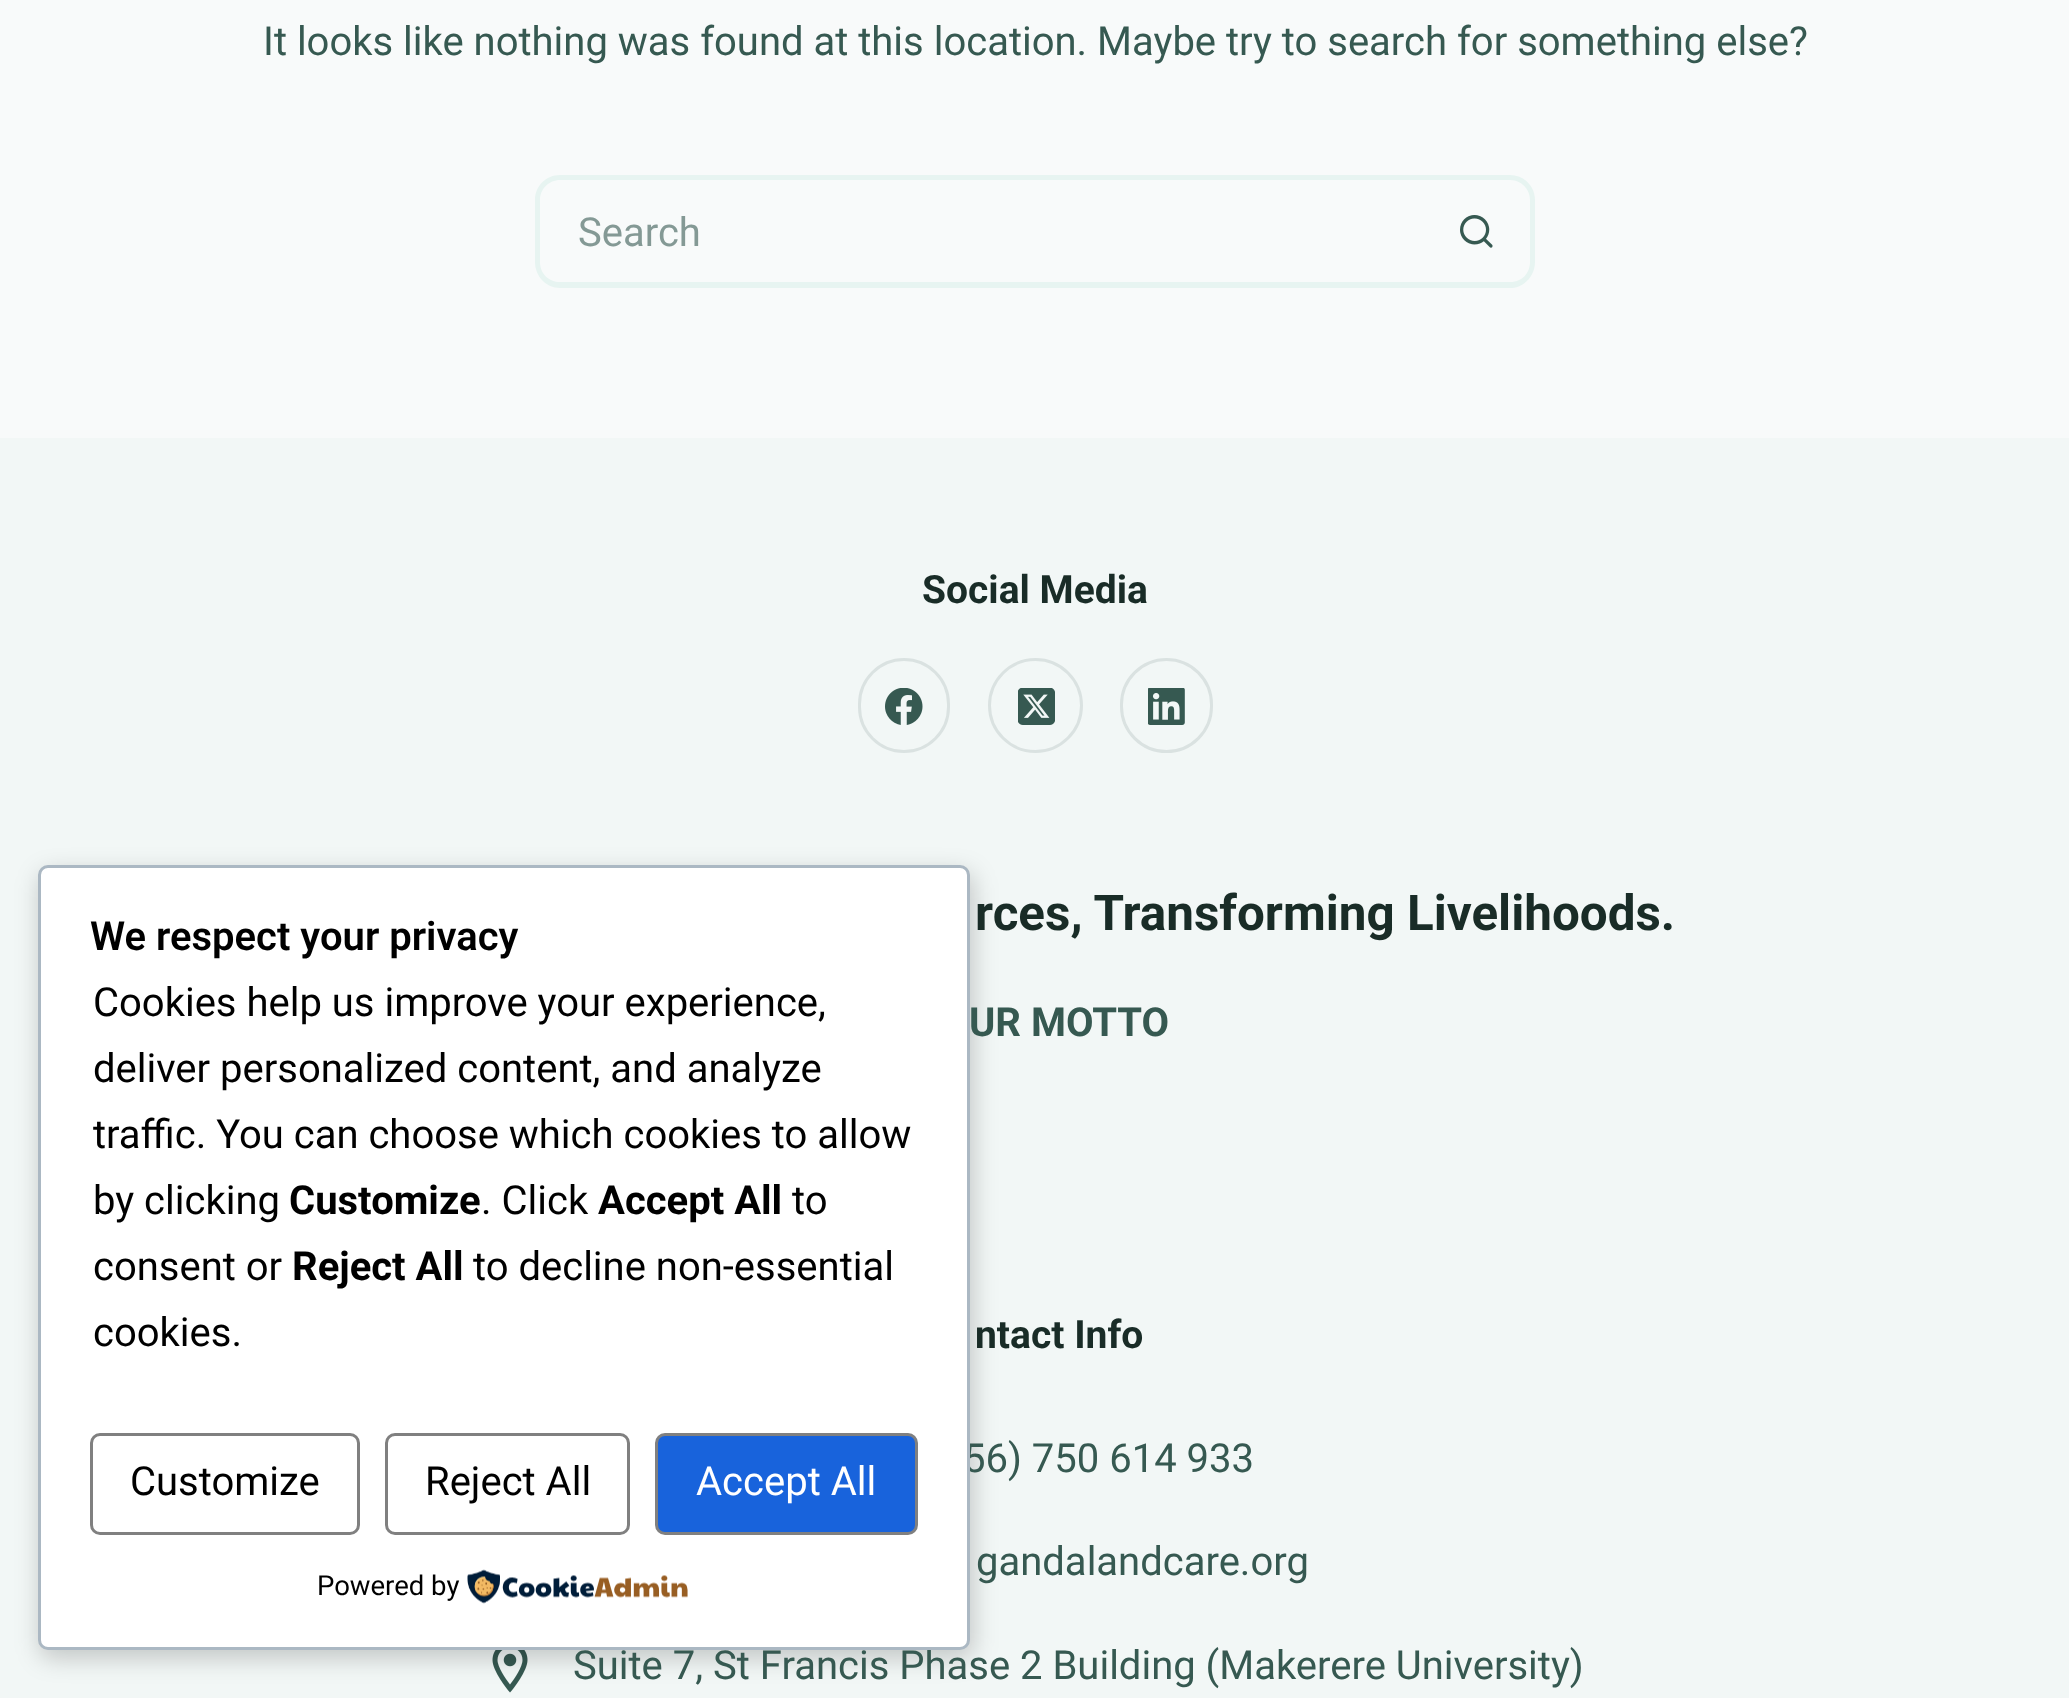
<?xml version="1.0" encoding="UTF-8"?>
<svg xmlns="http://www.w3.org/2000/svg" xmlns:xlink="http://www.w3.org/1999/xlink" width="2069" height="1698">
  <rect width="100%" height="100%" fill="#f8fafa" />
  <path d="M 560 175 h 862 v 113 h -862 c -14 0 -25 -12 -25 -26 v -62 c 0 -14 11 -25 25 -25 z m 0 5 h 862 v 102 h -862 c -11 0 -20 -8 -20 -20 v -62 c 0 -11 9 -20 20 -20 z" fill="#e7f4f1" fill-rule="evenodd" />
  <path d="M 1422 175 h 88 c 14 0 25 11 25 25 v 62 c 0 14 -11 26 -25 26 h -88 z m 0 5 h 88 c 11 0 20 9 20 20 v 62 c 0 12 -9 20 -20 20 h -88 z" fill="#e7f4f1" fill-rule="evenodd" />
  <image x="1460" y="215" width="33" height="33" xlink:href="image1.png" />
  <rect y="438" width="2069" height="1260" fill="#f2f7f6" />
  <rect x="859.5" y="659.5" width="89" height="92" rx="44.5" fill="none" stroke="#dae2e1" stroke-width="3" />
  <image x="885" y="688" width="38" height="37" xlink:href="image2.png" />
  <circle cx="1035.5" cy="705.5" r="46" fill="none" stroke="#dae2e1" stroke-width="3" />
  <image x="1018" y="688" width="37" height="37" xlink:href="image3.png" />
  <rect x="1121.5" y="659.5" width="90" height="92" rx="45" fill="none" stroke="#dae2e1" stroke-width="3" />
  <image x="1148" y="688" width="37" height="37" xlink:href="image4.png" />
  <image x="492" y="1650" width="36" height="43" xlink:href="image5.png" />
  <rect x="40" y="873" width="933" height="785" rx="10" fill="#000000" fill-opacity="0.2" filter="blur(12.5px)" />
  <text x="263" y="55" style="font-family: Roboto; font-size: 40px; fill: #365951">It looks like nothing was found at this location. Maybe try to search for something else?</text>
  <text x="578" y="246" style="font-family: Roboto; font-size: 40px; fill: #849995">Search</text>
  <text x="922" y="603" style="font-family: Roboto; font-size: 39px; font-weight: bold; fill: #192c27">Social Media</text>
  <text x="975" y="930" style="font-family: Roboto; font-size: 49.4px; font-weight: bold; fill: #192c27">rces, Transforming Livelihoods.</text>
  <text x="969" y="1036" style="font-family: Roboto; font-size: 40px; font-weight: bold; fill: #365951">UR MOTTO</text>
  <text x="975" y="1348" style="font-family: Roboto; font-size: 39px; font-weight: bold; fill: #192c27">ntact Info</text>
  <text x="963" y="1472" style="font-family: Roboto; font-size: 40px; fill: #365951">56) 750 614 933</text>
  <text x="976" y="1575" style="font-family: Roboto; font-size: 40px; fill: #365951">gandalandcare.org</text>
  <text x="573" y="1679" style="font-family: Roboto; font-size: 40px; fill: #365951">Suite 7, St Francis Phase 2 Building (Makerere University)</text>
  <rect x="39.5" y="866.5" width="929" height="782" rx="8.5" fill="#ffffff" stroke="#abb8c3" stroke-width="3" />
  <text x="90" y="950" style="font-family: Roboto; font-size: 40px; font-weight: 600; fill: #000000">We respect your privacy</text>
  <text x="93" y="1016" style="font-family: Roboto; font-size: 40px; fill: #000000">Cookies help us improve your experience,</text>
  <text x="93" y="1082" style="font-family: Roboto; font-size: 40px; fill: #000000">deliver personalized content, and analyze</text>
  <text x="93" y="1148" style="font-family: Roboto; font-size: 40px; fill: #000000">traffic. You can choose which cookies to allow</text>
  <text x="93" y="1214" style="font-family: Roboto; font-size: 40px; fill: #000000">by clicking</text>
  <text x="289" y="1214" style="font-family: Roboto; font-size: 40px; font-weight: bold; fill: #000000">Customize</text>
  <text x="481" y="1214" style="font-family: Roboto; font-size: 40px; fill: #000000">. Click</text>
  <text x="598" y="1214" style="font-family: Roboto; font-size: 40px; font-weight: bold; fill: #000000">Accept All</text>
  <text x="792" y="1214" style="font-family: Roboto; font-size: 40px; fill: #000000">to</text>
  <text x="93" y="1280" style="font-family: Roboto; font-size: 40px; fill: #000000">consent or</text>
  <text x="292" y="1280" style="font-family: Roboto; font-size: 40px; font-weight: bold; fill: #000000">Reject All</text>
  <text x="473" y="1280" style="font-family: Roboto; font-size: 40px; fill: #000000">to decline non-essential</text>
  <text x="93" y="1346" style="font-family: Roboto; font-size: 40px; fill: #000000">cookies.</text>
  <rect x="91.5" y="1434.5" width="267" height="99" rx="8.5" fill="none" stroke="#808080" stroke-width="3" />
  <text x="130" y="1495" style="font-family: Roboto; font-size: 40px; fill: #000000">Customize</text>
  <rect x="386.5" y="1434.5" width="242" height="99" rx="8.5" fill="none" stroke="#808080" stroke-width="3" />
  <text x="425" y="1495" style="font-family: Roboto; font-size: 40px; fill: #000000">Reject All</text>
  <rect x="656.5" y="1434.5" width="260" height="99" rx="8.5" fill="#1863dc" stroke="#808080" stroke-width="3" />
  <text x="696" y="1495" style="font-family: Roboto; font-size: 40px; fill: #ffffff">Accept All</text>
  <text x="317" y="1595" style="font-family: Roboto; font-size: 27.5px; fill: #000000">Powered by</text>
  <image x="467" y="1569" width="221" height="35" xlink:href="image6.png" />
</svg>
